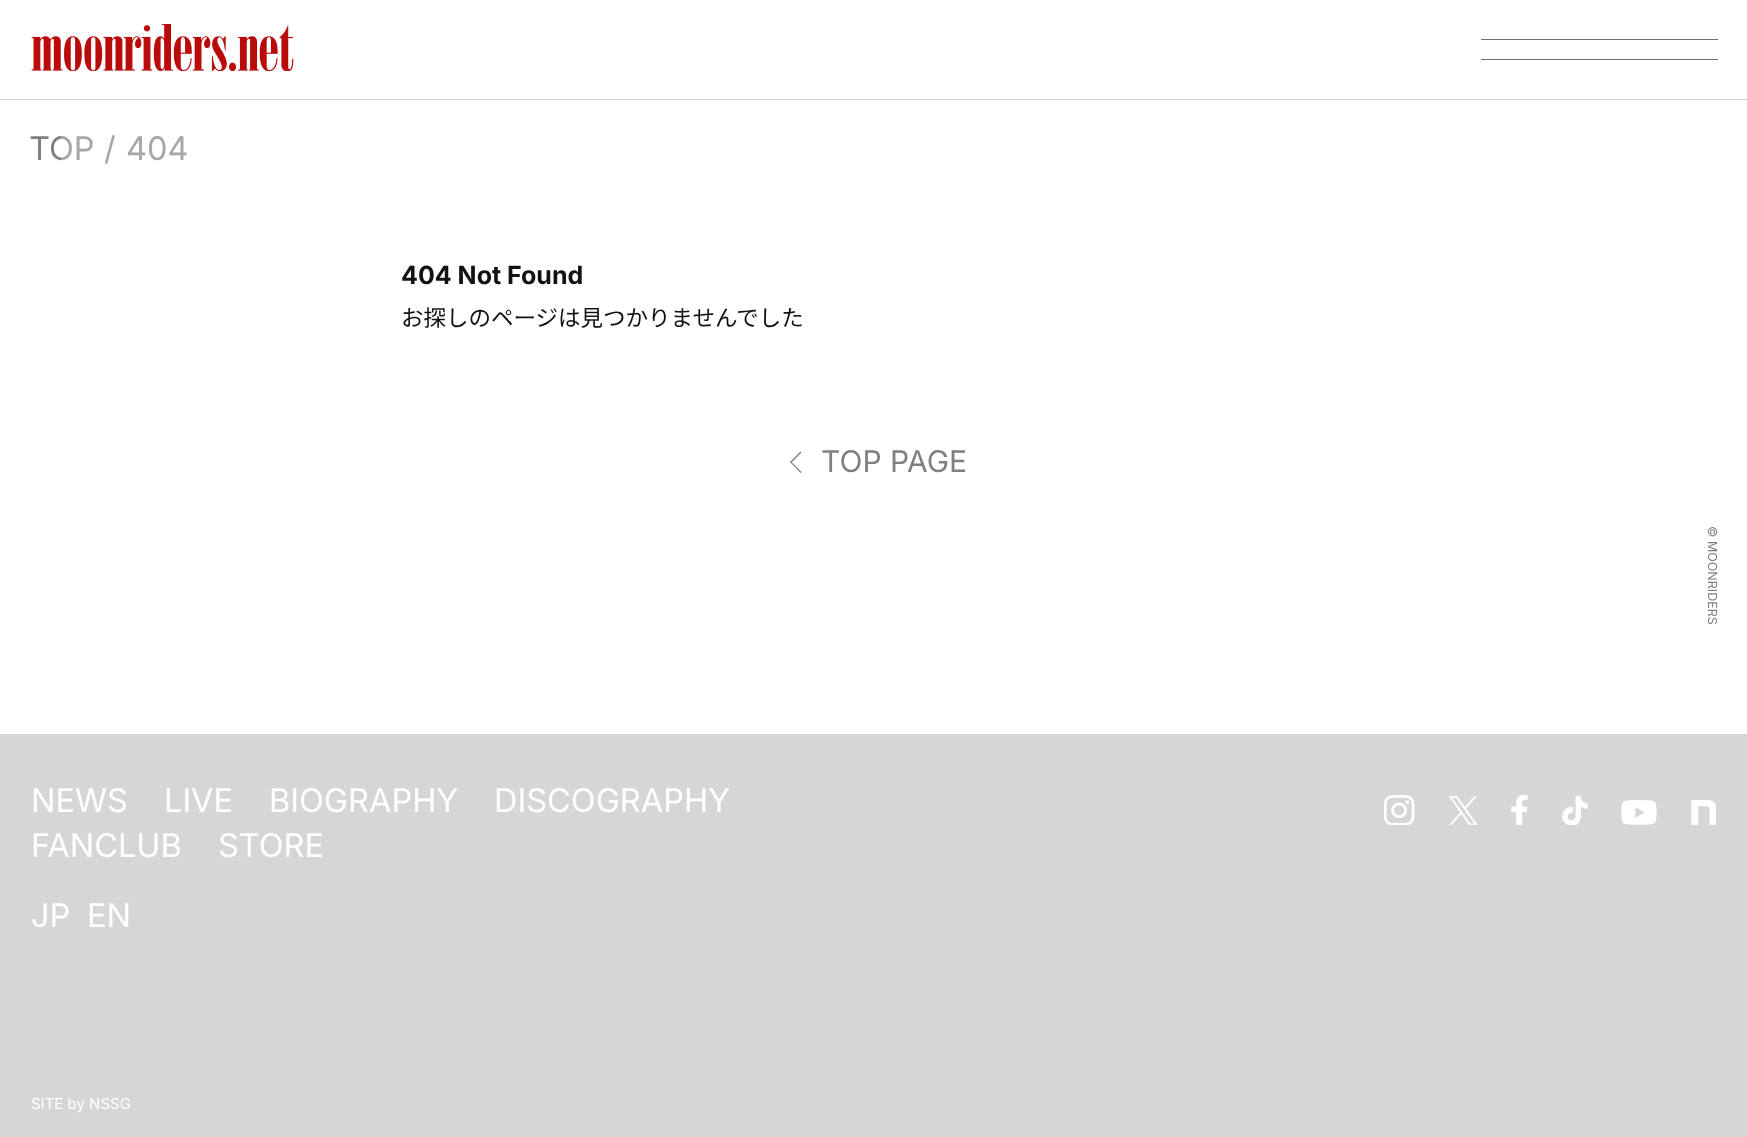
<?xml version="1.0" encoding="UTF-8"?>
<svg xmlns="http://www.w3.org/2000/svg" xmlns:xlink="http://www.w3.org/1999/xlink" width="1747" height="1137">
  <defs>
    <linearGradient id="g1" gradientUnits="userSpaceOnUse" x1="29" y1="149" x2="94" y2="149"><stop offset="0" stop-color="#808080" /><stop offset="0.5" stop-color="#808080" /><stop offset="0.5" stop-color="#a7a7a7" /></linearGradient>
  </defs>
  <rect width="100%" height="100%" fill="#ffffff" />
  <rect y="99" width="1747" height="1" fill="#d5d5d5" />
  <image x="31" y="24" width="263" height="47" xlink:href="image1.png" />
  <rect x="1481" y="39" width="237" height="1" fill="#707070" />
  <rect x="1481" y="59" width="237" height="1" fill="#707070" />
  <path d="M 791 461.5 l 10.5 10.5 l -1 1 l -10.5 -11 z" fill="#808080" />
  <path d="M 800.5 451.5 l 1 1 l -10.5 10.5 l -1 -1 z" fill="#808080" />
  <rect y="734" width="1747" height="403" fill="#d6d6d6" />
  <image x="1384" y="795" width="31" height="30" xlink:href="image2.png" />
  <image x="1449" y="796" width="29" height="29" xlink:href="image3.png" />
  <image x="1511" y="795" width="17" height="30" xlink:href="image4.png" />
  <image x="1561" y="795" width="27" height="30" xlink:href="image5.png" />
  <image x="1621" y="800" width="36" height="25" xlink:href="image6.png" />
  <image x="1691" y="800" width="25" height="25" xlink:href="image7.png" />
  <text x="29" y="160" style="font-family: Inter; font-size: 32.5px; fill: url(#g1)">TOP</text>
  <text x="104" y="160" style="font-family: Inter; font-size: 32.5px; fill: #a7a7a7">/</text>
  <text x="126" y="160" style="font-family: Inter; font-size: 32.5px; fill: #a7a7a7">404</text>
  <text x="401" y="284" style="font-family: Inter; font-size: 25px; font-weight: bold; fill: #121212">404 Not Found</text>
  <text x="401" y="326" style="font-family: Noto Sans JP; font-size: 22.5px; fill: #121212">お探しのページは見つかりませんでした</text>
  <text x="821" y="472" style="font-family: Inter; font-size: 30px; fill: #808080">TOP PAGE</text>
  <text x="1708" y="526" transform="rotate(90 1708 526)" style="font-family: Inter; font-size: 12.5px; fill: #808080">© MOONRIDERS</text>
  <text x="31" y="812" style="font-family: Inter; font-size: 32.5px; fill: #ffffff">NEWS</text>
  <text x="164" y="812" style="font-family: Inter; font-size: 32.5px; fill: #ffffff">LIVE</text>
  <text x="269" y="812" style="font-family: Inter; font-size: 32.5px; fill: #ffffff">BIOGRAPHY</text>
  <text x="494" y="812" style="font-family: Inter; font-size: 32.5px; fill: #ffffff">DISCOGRAPHY</text>
  <text x="31" y="857" style="font-family: Inter; font-size: 32.5px; fill: #ffffff">FANCLUB</text>
  <text x="218" y="857" style="font-family: Inter; font-size: 32.5px; fill: #ffffff">STORE</text>
  <text x="31" y="927" style="font-family: Inter; font-size: 32.5px; fill: #ffffff">JP</text>
  <text x="87" y="927" style="font-family: Inter; font-size: 32.5px; fill: #ffffff">EN</text>
  <text x="31" y="1109" style="font-family: Inter; font-size: 15px; fill: #ffffff">SITE by NSSG</text>
</svg>
